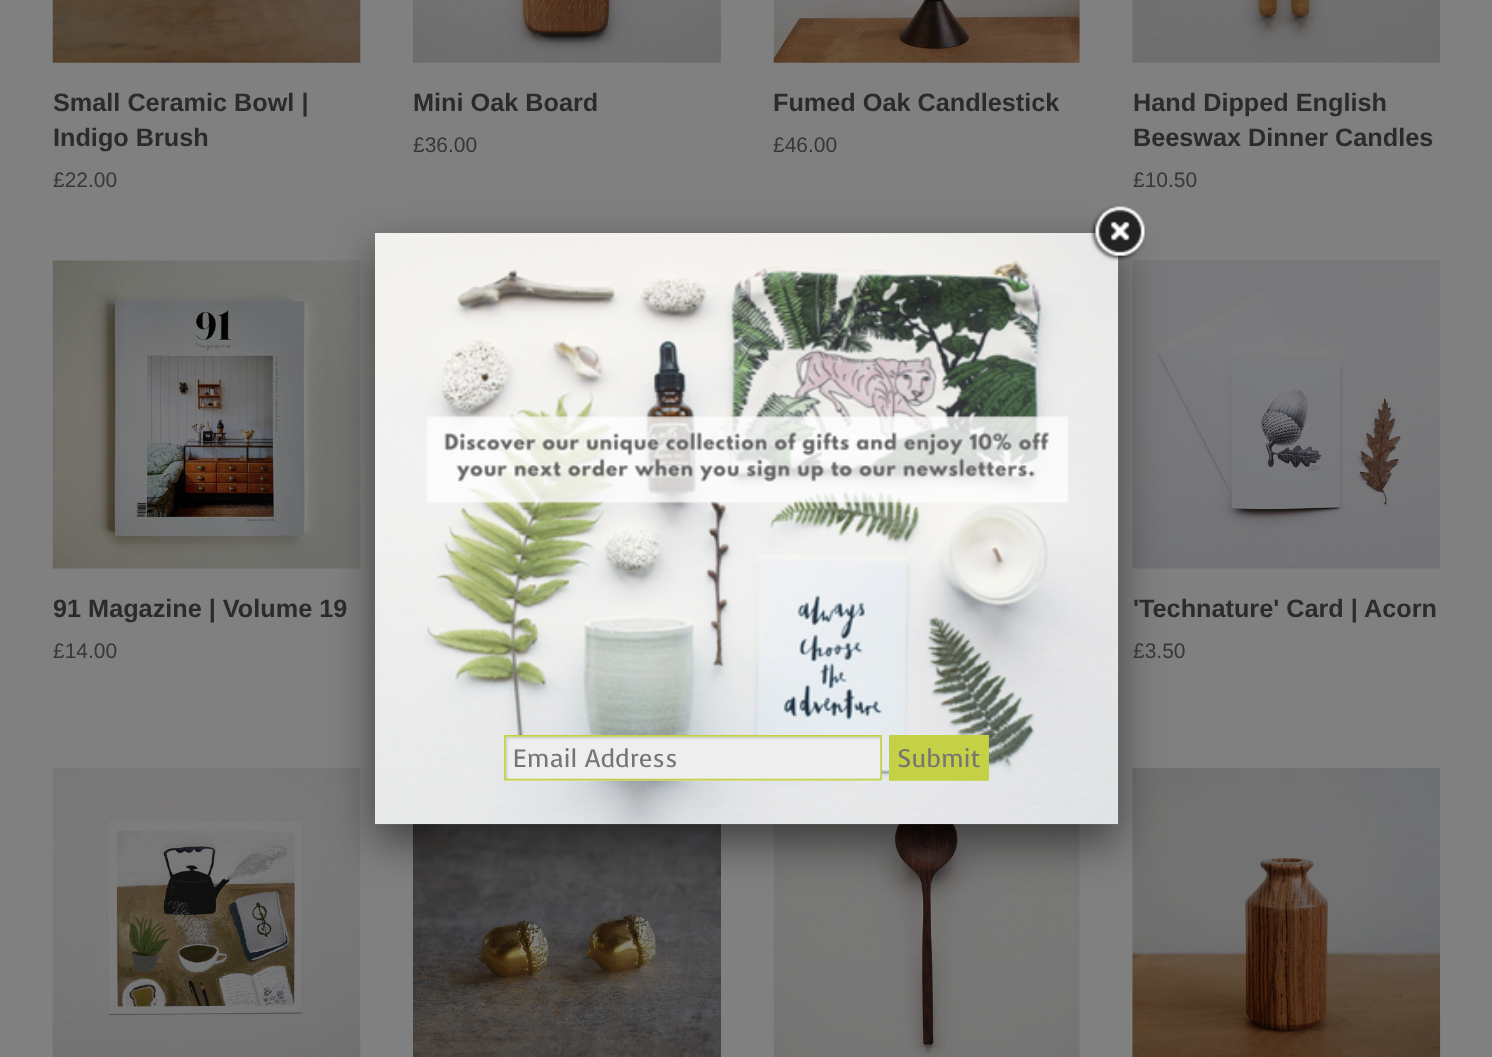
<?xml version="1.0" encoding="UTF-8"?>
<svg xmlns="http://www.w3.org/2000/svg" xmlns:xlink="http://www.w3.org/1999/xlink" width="1492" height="1057">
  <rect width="100%" height="100%" fill="#808080" />
  <image x="52" y="0" width="309" height="63" xlink:href="image1.png" />
  <image x="413" y="0" width="308" height="63" xlink:href="image2.png" />
  <image x="773" y="0" width="307" height="63" xlink:href="image3.png" />
  <image x="1132" y="0" width="308" height="63" xlink:href="image4.png" />
  <image x="52" y="260" width="309" height="309" xlink:href="image5.png" />
  <image x="1132" y="260" width="308" height="309" xlink:href="image6.png" />
  <image x="52" y="768" width="309" height="289" xlink:href="image7.png" />
  <image x="413" y="824" width="308" height="233" xlink:href="image8.png" />
  <image x="773" y="824" width="307" height="233" xlink:href="image9.png" />
  <image x="1132" y="768" width="309" height="289" xlink:href="image10.png" />
  <rect x="375" y="250" width="743" height="592" fill="#000000" fill-opacity="0.5" filter="blur(22px)" />
  <image x="375" y="233" width="744" height="592" xlink:href="image12.png" />
  <image x="1090" y="205" width="56" height="56" xlink:href="image11.png" />
  <text x="53" y="111" style="font-family: Liberation Sans; font-size: 25.25px; font-weight: bold; fill: #2b2b2b">Small Ceramic Bowl |</text>
  <text x="53" y="146" style="font-family: Liberation Sans; font-size: 25.25px; font-weight: bold; fill: #2b2b2b">Indigo Brush</text>
  <text x="53" y="187" style="font-family: Liberation Sans; font-size: 21px; fill: #373737">£22.00</text>
  <text x="413" y="111" style="font-family: Liberation Sans; font-size: 25.25px; font-weight: bold; fill: #2b2b2b">Mini Oak Board</text>
  <text x="413" y="152" style="font-family: Liberation Sans; font-size: 21px; fill: #373737">£36.00</text>
  <text x="773" y="111" style="font-family: Liberation Sans; font-size: 25.25px; font-weight: bold; fill: #2b2b2b">Fumed Oak Candlestick</text>
  <text x="773" y="152" style="font-family: Liberation Sans; font-size: 21px; fill: #373737">£46.00</text>
  <text x="1133" y="111" style="font-family: Liberation Sans; font-size: 25.25px; font-weight: bold; fill: #2b2b2b">Hand Dipped English</text>
  <text x="1133" y="146" style="font-family: Liberation Sans; font-size: 25.25px; font-weight: bold; fill: #2b2b2b">Beeswax Dinner Candles</text>
  <text x="1133" y="187" style="font-family: Liberation Sans; font-size: 21px; fill: #373737">£10.50</text>
  <text x="53" y="617" style="font-family: Liberation Sans; font-size: 25.25px; font-weight: bold; fill: #2b2b2b">91 Magazine | Volume 19</text>
  <text x="53" y="658" style="font-family: Liberation Sans; font-size: 21px; fill: #373737">£14.00</text>
  <text x="1133" y="617" style="font-family: Liberation Sans; font-size: 25.25px; font-weight: bold; fill: #2b2b2b">'Technature' Card | Acorn</text>
  <text x="1133" y="658" style="font-family: Liberation Sans; font-size: 21px; fill: #373737">£3.50</text>
</svg>
